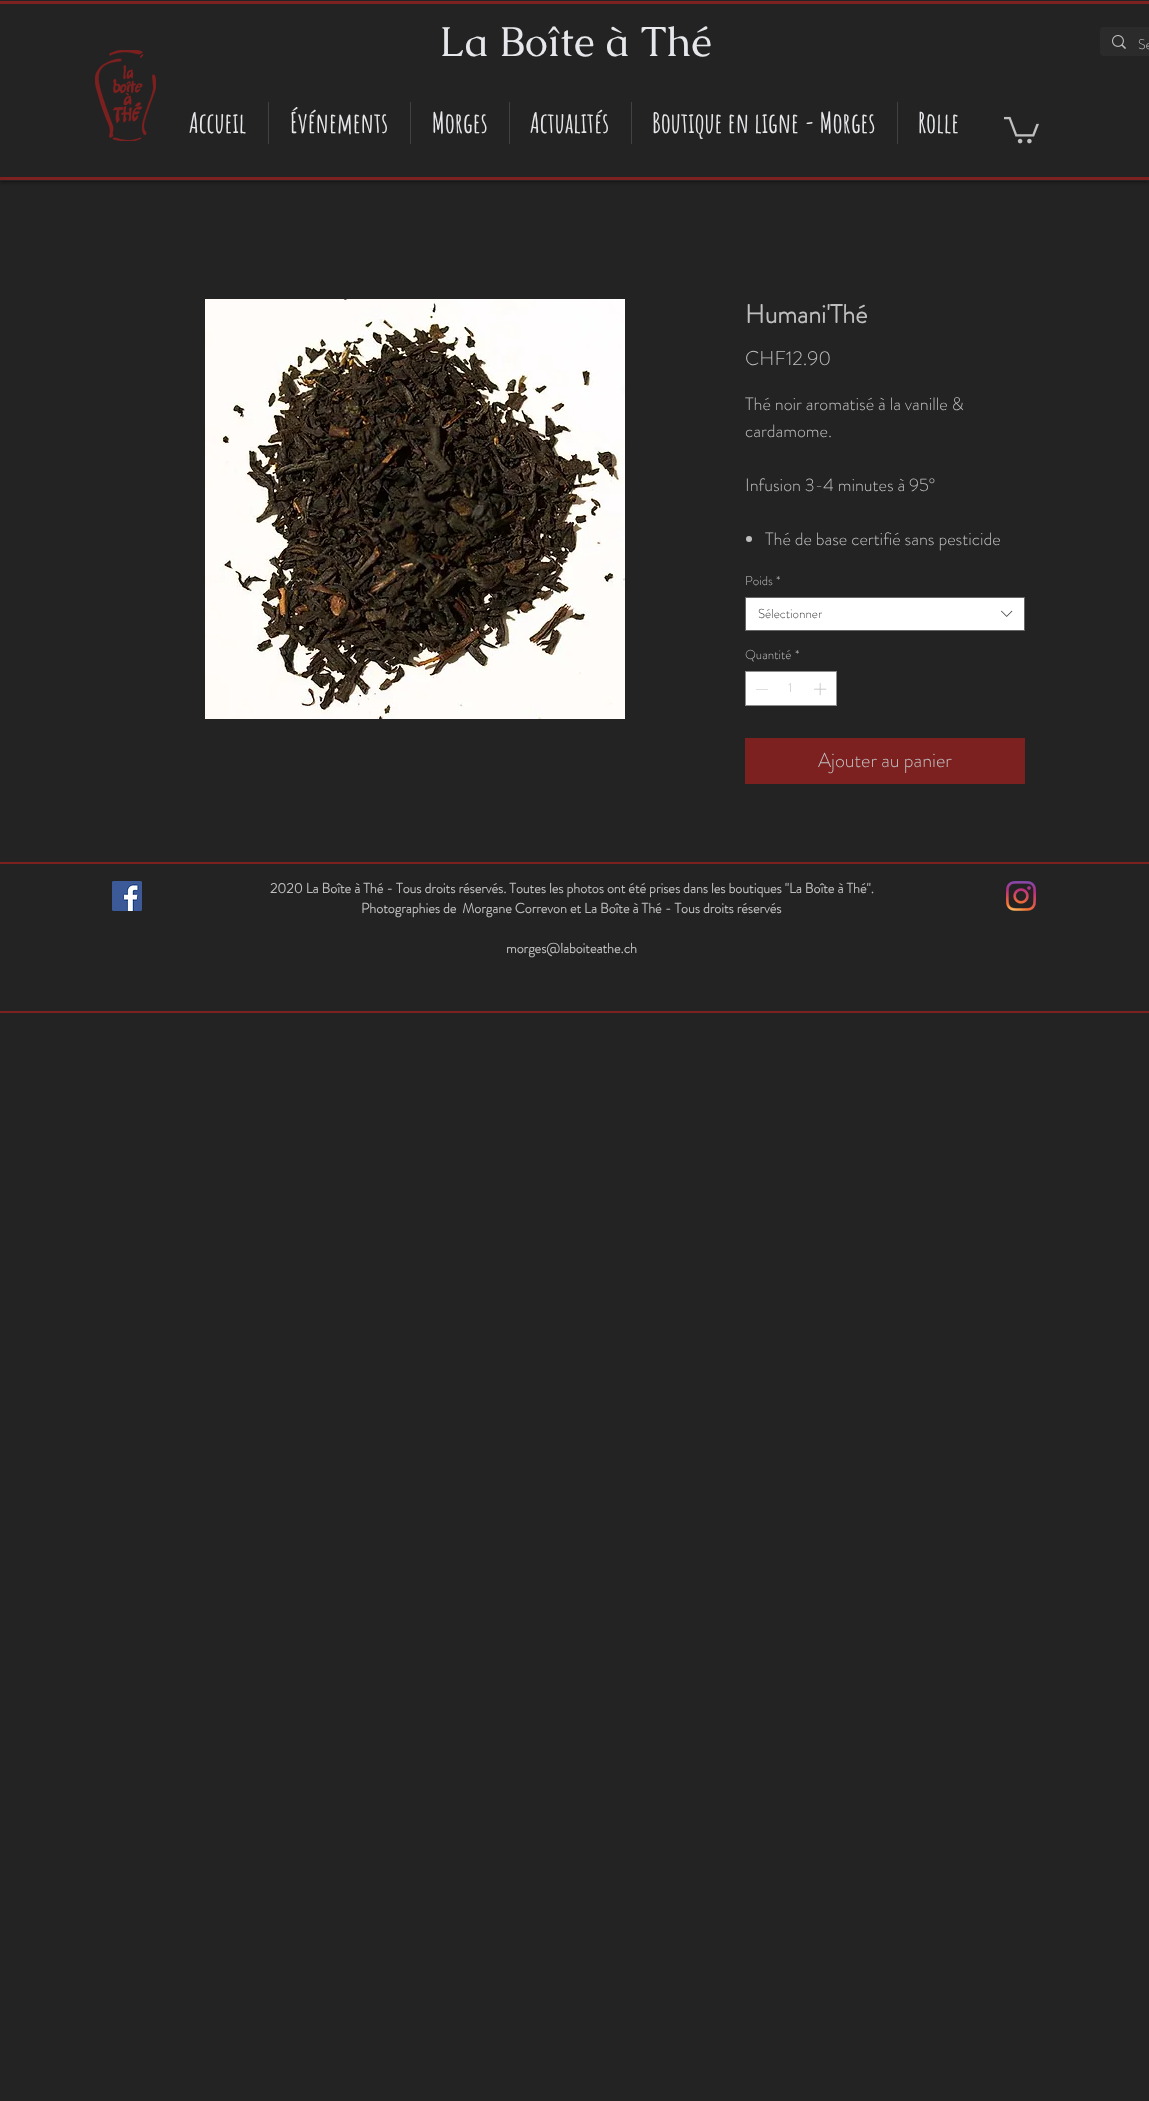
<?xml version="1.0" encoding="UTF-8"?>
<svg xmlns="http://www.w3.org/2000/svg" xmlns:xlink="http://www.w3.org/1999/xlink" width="1149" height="2101">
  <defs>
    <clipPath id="clip1"><rect x="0" y="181" width="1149" height="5" /></clipPath>
  </defs>
  <rect width="100%" height="100%" fill="#242323" />
  <g clip-path="url(#clip1)">
    <rect width="1149" height="181" fill="#000000" fill-opacity="0.7" filter="blur(2.5px)" />
  </g>
  <rect y="1" width="1149" height="3" fill="#7d2020" />
  <rect y="177" width="1149" height="3" fill="#7d2020" />
  <rect x="1100" y="27" width="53" height="29" rx="4" fill="#2b2b2b" />
  <image x="1112" y="35" width="14" height="14" xlink:href="image1.png" />
  <image x="95" y="50" width="61" height="91" xlink:href="image2.png" />
  <rect x="268" y="102" width="1" height="42" fill="#414141" />
  <rect x="410" y="102" width="1" height="42" fill="#414141" />
  <rect x="509" y="102" width="1" height="42" fill="#414141" />
  <rect x="631" y="102" width="1" height="42" fill="#414141" />
  <rect x="897" y="102" width="1" height="42" fill="#414141" />
  <image x="1004" y="116" width="35" height="28" xlink:href="image3.png" />
  <image x="205" y="299" width="420" height="420" xlink:href="image4.png" />
  <circle cx="749" cy="539" r="3" fill="#bfbfbf" />
  <rect x="745.5" y="597.5" width="279" height="33" fill="#ffffff" stroke="#666666" />
  <image x="1001" y="610" width="12" height="7" xlink:href="image5.png" />
  <rect x="745.5" y="671.5" width="91" height="34" fill="#ffffff" stroke="#8d8d8d" />
  <path d="M 768 689 v 0.5 h -12 v -0.5 z" fill="#bfbfbf" fill-rule="evenodd" />
  <image x="814" y="683" width="13" height="13" xlink:href="image6.png" />
  <rect x="745" y="738" width="280" height="46" fill="#7d2020" />
  <rect y="862" width="1149" height="2" fill="#7d2020" />
  <image x="112" y="881" width="30" height="30" xlink:href="image7.png" />
  <image x="1006" y="881" width="30" height="30" xlink:href="image8.png" />
  <rect y="1011" width="1149" height="2" fill="#7d2020" />
  <text x="439" y="56" style="font-family: Caudex; font-size: 42px; fill: #e6e7ea">La Boîte à Thé</text>
  <text x="1138" y="49" style="font-family: 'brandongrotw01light'; font-size: 14px; font-weight: 300; fill: #bfbfbf">Se</text>
  <text x="189" y="133" style="font-family: Amatic SC; font-size: 28px; font-weight: bold; fill: #e6e7ea">Accueil</text>
  <text x="290" y="133" style="font-family: Amatic SC; font-size: 28px; font-weight: bold; fill: #e6e7ea">Événements</text>
  <text x="432" y="133" style="font-family: Amatic SC; font-size: 28px; font-weight: bold; fill: #e6e7ea">Morges</text>
  <text x="530" y="133" style="font-family: Amatic SC; font-size: 28px; font-weight: bold; fill: #e6e7ea">Actualités</text>
  <text x="652" y="133" style="font-family: Amatic SC; font-size: 28px; font-weight: bold; fill: #e6e7ea">Boutique en ligne - Morges</text>
  <text x="918" y="133" style="font-family: Amatic SC; font-size: 28px; font-weight: bold; fill: #e6e7ea">Rolle</text>
  <text x="745" y="323" style="font-family: 'brandongrotw01light'; font-size: 26px; font-weight: bold; fill: #bfbfbf">Humani'Thé</text>
  <text x="745" y="365" style="font-family: 'brandongrotw01light'; font-size: 20px; font-weight: 300; fill: #bfbfbf">CHF12.90</text>
  <text x="745" y="410" style="font-family: 'brandongrotw01light'; font-size: 18px; font-weight: 300; fill: #bfbfbf">Thé noir aromatisé à la vanille &amp;</text>
  <text x="745" y="437" style="font-family: 'brandongrotw01light'; font-size: 18px; font-weight: 300; fill: #bfbfbf">cardamome.</text>
  <text x="745" y="491" style="font-family: 'brandongrotw01light'; font-size: 18px; font-weight: 300; fill: #bfbfbf">Infusion 3-4 minutes à 95°</text>
  <text x="765" y="545" style="font-family: 'brandongrotw01light'; font-size: 18px; font-weight: 300; fill: #bfbfbf">Thé de base certifié sans pesticide</text>
  <text x="745" y="585" style="font-family: 'brandongrotw01light'; font-size: 13px; font-weight: 300; fill: #bfbfbf">Poids</text>
  <text x="776" y="585" style="font-family: 'brandongrotw01light'; font-size: 13px; font-weight: 300; fill: #bfbfbf">*</text>
  <text x="758" y="618" style="font-family: 'brandongrotw01light'; font-size: 13px; font-weight: 300; fill: #444444">Sélectionner</text>
  <text x="745" y="659" style="font-family: 'brandongrotw01light'; font-size: 13px; font-weight: 300; fill: #bfbfbf">Quantité</text>
  <text x="795" y="659" style="font-family: 'brandongrotw01light'; font-size: 13px; font-weight: 300; fill: #bfbfbf">*</text>
  <text x="788" y="692" style="font-family: 'brandongrotw01light'; font-size: 13px; font-weight: 300; fill: #bfbfbf">1</text>
  <text x="818" y="767" style="font-family: 'brandongrotw01light'; font-size: 20px; font-weight: 300; fill: #bfbfbf">Ajouter au panier</text>
  <text x="270" y="893" style="font-family: 'brandongrotw01light'; font-size: 14px; font-weight: bold; fill: #bfbfbf">2020 La Boîte à Thé - Tous droits réservés. Toutes les photos ont été prises dans les boutiques "La Boîte à Thé".</text>
  <text x="361" y="913" style="font-family: 'brandongrotw01light'; font-size: 14px; font-weight: bold; fill: #bfbfbf" xml:space="preserve">Photographies de  Morgane Correvon et La Boîte à Thé - Tous droits réservés</text>
  <text x="506" y="953" style="font-family: 'brandongrotw01light'; font-size: 14px; font-weight: bold; fill: #bfbfbf">morges@laboiteathe.ch</text>
</svg>
